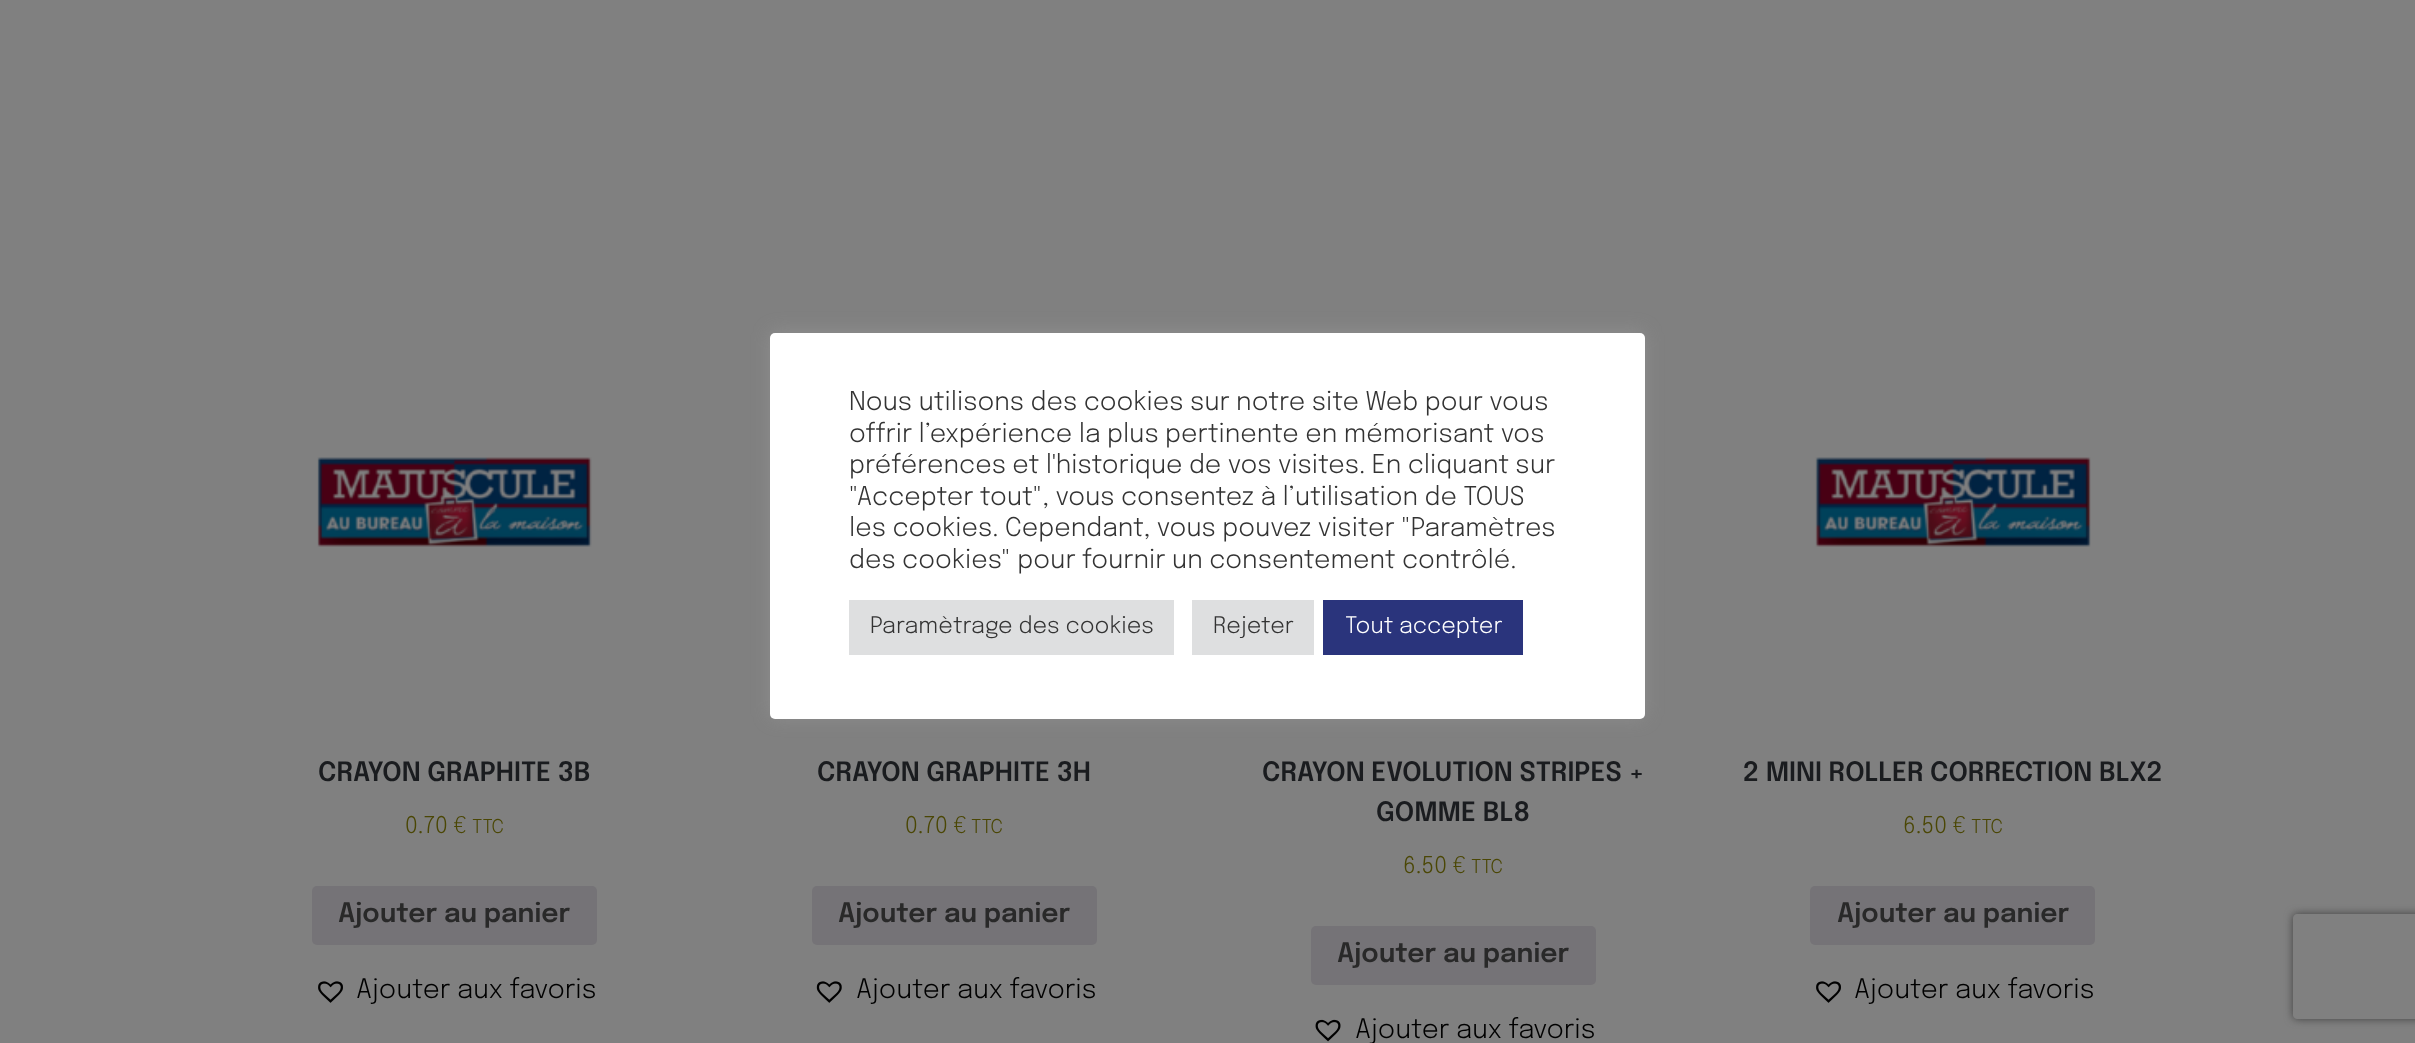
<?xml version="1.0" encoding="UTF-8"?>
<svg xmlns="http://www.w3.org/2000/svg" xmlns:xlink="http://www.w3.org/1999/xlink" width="2415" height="1043">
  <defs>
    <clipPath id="clip1"><path d="M 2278 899 h 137 v 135 h -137 z m 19 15 h 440 c 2 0 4 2 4 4 v 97 c 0 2 -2 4 -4 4 h -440 c -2 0 -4 -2 -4 -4 v -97 c 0 -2 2 -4 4 -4 z" clip-rule="evenodd" /></clipPath>
  </defs>
  <rect width="100%" height="100%" fill="#808080" />
  <rect x="770" y="331" width="875" height="387" rx="5" fill="#acabab" fill-opacity="0.3" filter="blur(9px)" />
  <rect x="770" y="333" width="875" height="386" rx="5" fill="#ffffff" />
  <rect x="849" y="600" width="325" height="55" fill="#dedfe0" />
  <rect x="1192" y="600" width="122" height="55" fill="#dedfe0" />
  <rect x="1323" y="600" width="200" height="55" fill="#2a347c" />
  <image x="317" y="457" width="275" height="90" xlink:href="image1.png" />
  <rect x="312" y="886" width="285" height="59" rx="5" fill="#757377" />
  <image x="318" y="981" width="25" height="22" xlink:href="image2.png" />
  <rect x="812" y="886" width="285" height="59" rx="5" fill="#757377" />
  <image x="816" y="981" width="26" height="22" xlink:href="image3.png" />
  <rect x="1311" y="926" width="285" height="59" rx="5" fill="#757377" />
  <image x="1315" y="1019" width="26" height="23" xlink:href="image4.png" />
  <image x="1815" y="457" width="276" height="90" xlink:href="image5.png" />
  <rect x="1810" y="886" width="285" height="59" rx="5" fill="#757377" />
  <image x="1816" y="981" width="25" height="22" xlink:href="image2.png" />
  <g clip-path="url(#clip1)">
    <rect x="2293" y="914" width="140" height="105" rx="4" fill="#404040" filter="blur(4.5px)" />
  </g>
  <text x="849" y="410" style="font-family: Epilogue; font-size: 25.7px; font-weight: 300; fill: #333333">Nous utilisons des cookies sur notre site Web pour vous</text>
  <text x="849" y="442" style="font-family: Epilogue; font-size: 25.7px; font-weight: 300; fill: #333333">offrir l’expérience la plus pertinente en mémorisant vos</text>
  <text x="849" y="473" style="font-family: Epilogue; font-size: 25.7px; font-weight: 300; fill: #333333">préférences et l'historique de vos visites. En cliquant sur</text>
  <text x="849" y="505" style="font-family: Epilogue; font-size: 25.7px; font-weight: 300; fill: #333333">"Accepter tout", vous consentez à l’utilisation de TOUS</text>
  <text x="849" y="536" style="font-family: Epilogue; font-size: 25.7px; font-weight: 300; fill: #333333">les cookies. Cependant, vous pouvez visiter "Paramètres</text>
  <text x="849" y="568" style="font-family: Epilogue; font-size: 25.7px; font-weight: 300; fill: #333333">des cookies" pour fournir un consentement contrôlé.</text>
  <text x="870" y="633" style="font-family: Epilogue; font-size: 22.75px; font-weight: 300; fill: #333333">Paramètrage des cookies</text>
  <text x="1213" y="633" style="font-family: Epilogue; font-size: 22.75px; font-weight: 300; fill: #333333">Rejeter</text>
  <text x="1345" y="633" style="font-family: Epilogue; font-size: 22.75px; font-weight: 300; fill: #ffffff">Tout accepter</text>
  <text x="318" y="781" style="font-family: Epilogue; font-size: 26.6px; font-weight: 600; fill: #1a1c1f">CRAYON GRAPHITE 3B</text>
  <text x="405" y="833" style="font-family: Epilogue; font-size: 23px; font-weight: 300; fill: #4b4705">0.70 €</text>
  <text x="472" y="833" style="font-family: Epilogue; font-size: 19px; font-weight: 300; fill: #4b4705">TTC</text>
  <text x="338" y="922" style="font-family: Epilogue; font-size: 26.6px; font-weight: 600; fill: #292929">Ajouter au panier</text>
  <text x="356" y="998" style="font-family: Epilogue; font-size: 26.6px; font-weight: 300; fill: #000000">Ajouter aux favoris</text>
  <text x="817" y="781" style="font-family: Epilogue; font-size: 26.6px; font-weight: 600; fill: #1a1c1f">CRAYON GRAPHITE 3H</text>
  <text x="905" y="833" style="font-family: Epilogue; font-size: 23px; font-weight: 300; fill: #4b4705">0.70 €</text>
  <text x="971" y="833" style="font-family: Epilogue; font-size: 19px; font-weight: 300; fill: #4b4705">TTC</text>
  <text x="838" y="922" style="font-family: Epilogue; font-size: 26.6px; font-weight: 600; fill: #292929">Ajouter au panier</text>
  <text x="856" y="998" style="font-family: Epilogue; font-size: 26.6px; font-weight: 300; fill: #000000">Ajouter aux favoris</text>
  <text x="1262" y="781" style="font-family: Epilogue; font-size: 26.6px; font-weight: 600; fill: #1a1c1f">CRAYON EVOLUTION STRIPES +</text>
  <text x="1376" y="821" style="font-family: Epilogue; font-size: 26.6px; font-weight: 600; fill: #1a1c1f">GOMME BL8</text>
  <text x="1403" y="873" style="font-family: Epilogue; font-size: 23px; font-weight: 300; fill: #4b4705">6.50 €</text>
  <text x="1471" y="873" style="font-family: Epilogue; font-size: 19px; font-weight: 300; fill: #4b4705">TTC</text>
  <text x="1337" y="962" style="font-family: Epilogue; font-size: 26.6px; font-weight: 600; fill: #292929">Ajouter au panier</text>
  <text x="1355" y="1038" style="font-family: Epilogue; font-size: 26.6px; font-weight: 300; fill: #000000">Ajouter aux favoris</text>
  <text x="1743" y="781" style="font-family: Epilogue; font-size: 26.6px; font-weight: 600; fill: #1a1c1f">2 MINI ROLLER CORRECTION BLX2</text>
  <text x="1903" y="833" style="font-family: Epilogue; font-size: 23px; font-weight: 300; fill: #4b4705">6.50 €</text>
  <text x="1971" y="833" style="font-family: Epilogue; font-size: 19px; font-weight: 300; fill: #4b4705">TTC</text>
  <text x="1837" y="922" style="font-family: Epilogue; font-size: 26.6px; font-weight: 600; fill: #292929">Ajouter au panier</text>
  <text x="1854" y="998" style="font-family: Epilogue; font-size: 26.6px; font-weight: 300; fill: #000000">Ajouter aux favoris</text>
</svg>
